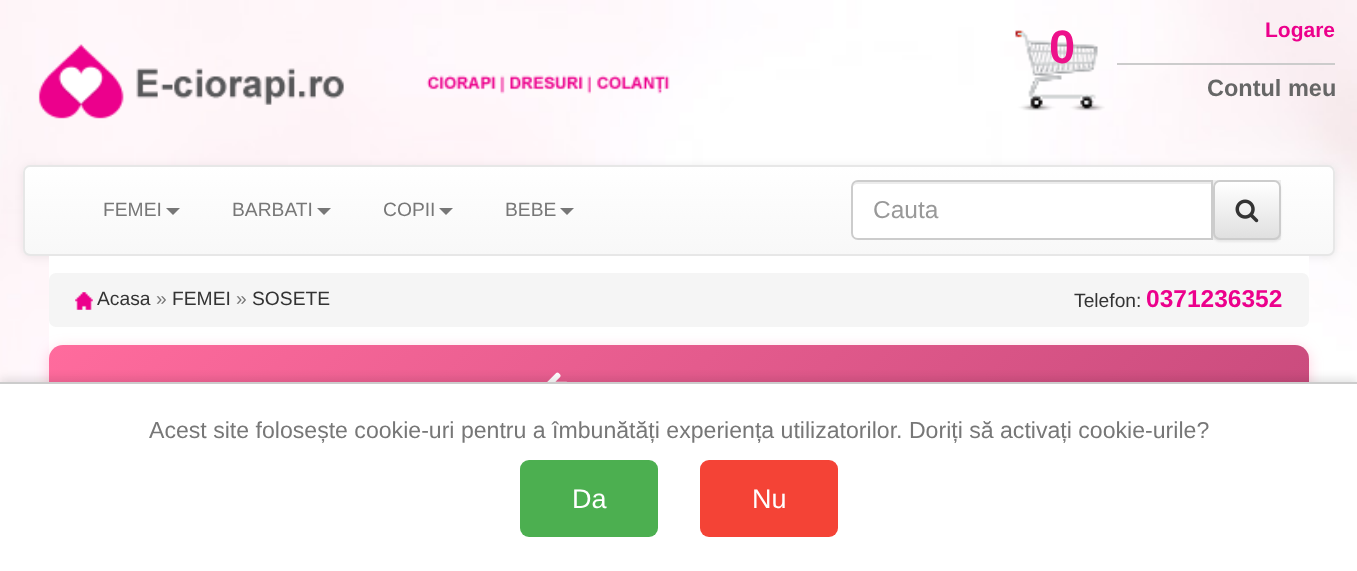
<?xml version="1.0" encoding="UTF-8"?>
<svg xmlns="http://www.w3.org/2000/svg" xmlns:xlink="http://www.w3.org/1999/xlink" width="1357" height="571">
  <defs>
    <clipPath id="clip1"><rect x="23" y="165" width="1312" height="91" rx="7" /></clipPath>
    <linearGradient id="g1" gradientUnits="userSpaceOnUse" x1="679" y1="166" x2="679" y2="254"><stop offset="0" stop-color="#ffffff" /><stop offset="1" stop-color="#f8f8f8" /></linearGradient>
    <clipPath id="clip2"><rect x="1213" y="180" width="68" height="60" rx="7" /></clipPath>
    <linearGradient id="g2" gradientUnits="userSpaceOnUse" x1="1247" y1="182" x2="1247" y2="238"><stop offset="0" stop-color="#ffffff" /><stop offset="1" stop-color="#e0e0e0" /></linearGradient>
    <linearGradient id="g3" gradientUnits="userSpaceOnUse" x1="344" y1="49" x2="1014" y2="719"><stop offset="0" stop-color="#ff6b9d" /><stop offset="1" stop-color="#c94b7d" /></linearGradient>
  </defs>
  <rect width="100%" height="100%" fill="#ffffff" />
  <image x="0" y="0" width="1357" height="382" xlink:href="image1.png" />
  <image x="38" y="44" width="86" height="75" xlink:href="image2.png" />
  <image x="136" y="68" width="208" height="37" xlink:href="image3.png" />
  <image x="426" y="75" width="244" height="19" xlink:href="image4.png" />
  <image x="1015" y="30" width="90" height="81" xlink:href="image5.png" />
  <rect x="1117" y="63" width="218" height="2" fill="#cccccc" />
  <rect x="23" y="166" width="1312" height="91" rx="7" fill="#000000" fill-opacity="0.07" filter="blur(4.5px)" />
  <g clip-path="url(#clip1)">
    <rect x="23" y="166" width="1312" height="88" fill="url(#g1)" />
  </g>
  <rect x="24" y="166" width="1310" height="89" rx="6" fill="none" stroke="#e7e7e7" stroke-width="2" />
  <path d="M 166 208 h 14 l -7 7 z" fill="#777777" />
  <path d="M 317 208 h 14 l -7 7 z" fill="#777777" />
  <path d="M 439 208 h 14 l -7 7 z" fill="#777777" />
  <path d="M 560 208 h 14 l -7 7 z" fill="#777777" />
  <rect x="1213" y="180" width="68" height="60" fill="#eeeeee" />
  <rect x="1213" y="182" width="68" height="60" rx="7" fill="#000000" fill-opacity="0.07" filter="blur(1px)" />
  <path d="M 858 180 h 355 v 60 h -355 c -4 0 -7 -3 -7 -7 v -46 c 0 -4 3 -7 7 -7 z" fill="#ffffff" />
  <path d="M 858 184 h 353 v -2 h -354 c -4 0 -5 4 -5 7 c 0 -3 3 -5 6 -5 z" fill="#ececec" />
  <path d="M 858 181 h 354 v 58 h -354 c -3.5 0 -6 -2.5 -6 -6 v -46 c 0 -3.5 2.5 -6 6 -6 z" fill="none" stroke="#cccccc" stroke-width="2" />
  <g clip-path="url(#clip2)">
    <rect x="1213" y="182" width="68" height="56" fill="url(#g2)" />
  </g>
  <rect x="1214" y="181" width="66" height="58" rx="6" fill="none" stroke="#cccccc" stroke-width="2" />
  <image x="1235" y="199" width="24" height="24" xlink:href="image6.png" />
  <rect x="49" y="256" width="1260" height="103" fill="#ffffff" />
  <rect x="49" y="348" width="1260" height="79" rx="14" fill="#ff6b9d" fill-opacity="0.3" filter="blur(7px)" />
  <rect x="49" y="345" width="1260" height="79" rx="14" fill="url(#g3)" />
  <image x="547" y="372" width="21" height="10" xlink:href="image7.png" />
  <rect x="49" y="273" width="1260" height="54" rx="7" fill="#f5f5f5" />
  <image x="75" y="292" width="18" height="18" xlink:href="image8.png" />
  <rect y="378" width="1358" height="191" fill="#000000" fill-opacity="0.1" filter="blur(4.5px)" />
  <rect y="384" width="1357" height="187" fill="#ffffff" />
  <rect y="382" width="1357" height="2" fill="#cccccc" />
  <rect x="520" y="460" width="138" height="77" rx="9" fill="#4caf50" />
  <rect x="700" y="460" width="138" height="77" rx="9" fill="#f44336" />
  <text x="1049" y="63" style="font-family: Liberation Sans; font-size: 47px; font-weight: bold; fill: #ed118a">0</text>
  <text x="1265" y="37" style="font-family: Liberation Sans; font-size: 21px; font-weight: bold; fill: #ec008c">Logare</text>
  <text x="1207" y="96" style="font-family: Liberation Sans; font-size: 23.5px; font-weight: bold; fill: #666666">Contul meu</text>
  <text x="103" y="216" style="font-family: Liberation Sans; font-size: 19.25px; fill: #777777">FEMEI</text>
  <text x="232" y="216" style="font-family: Liberation Sans; font-size: 19.25px; fill: #777777">BARBATI</text>
  <text x="383" y="216" style="font-family: Liberation Sans; font-size: 19.25px; fill: #777777">COPII</text>
  <text x="505" y="216" style="font-family: Liberation Sans; font-size: 19.25px; fill: #777777">BEBE</text>
  <text x="873" y="218" style="font-family: Liberation Sans; font-size: 24.5px; fill: #999999">Cauta</text>
  <text x="97" y="305" style="font-family: Liberation Sans; font-size: 19.25px; fill: #333333">Acasa</text>
  <text x="156" y="305" style="font-family: Liberation Sans; font-size: 19.25px; fill: #777777">»</text>
  <text x="172" y="305" style="font-family: Liberation Sans; font-size: 19.25px; fill: #333333">FEMEI</text>
  <text x="236" y="305" style="font-family: Liberation Sans; font-size: 19.25px; fill: #777777">»</text>
  <text x="252" y="305" style="font-family: Liberation Sans; font-size: 19.25px; fill: #333333">SOSETE</text>
  <text x="1074" y="307" style="font-family: Liberation Sans; font-size: 19.25px; fill: #333333">Telefon:</text>
  <text x="1146" y="307" style="font-family: Liberation Sans; font-size: 24.5px; font-weight: bold; fill: #ec008c">0371236352</text>
  <text x="149" y="438" style="font-family: Liberation Sans; font-size: 23.1px; fill: #777777">Acest site folosește cookie-uri pentru a îmbunătăți experiența utilizatorilor. Doriți să activați cookie-urile?</text>
  <text x="572" y="508" style="font-family: Liberation Sans; font-size: 27px; fill: #ffffff">Da</text>
  <text x="752" y="508" style="font-family: Liberation Sans; font-size: 27px; fill: #ffffff">Nu</text>
</svg>
